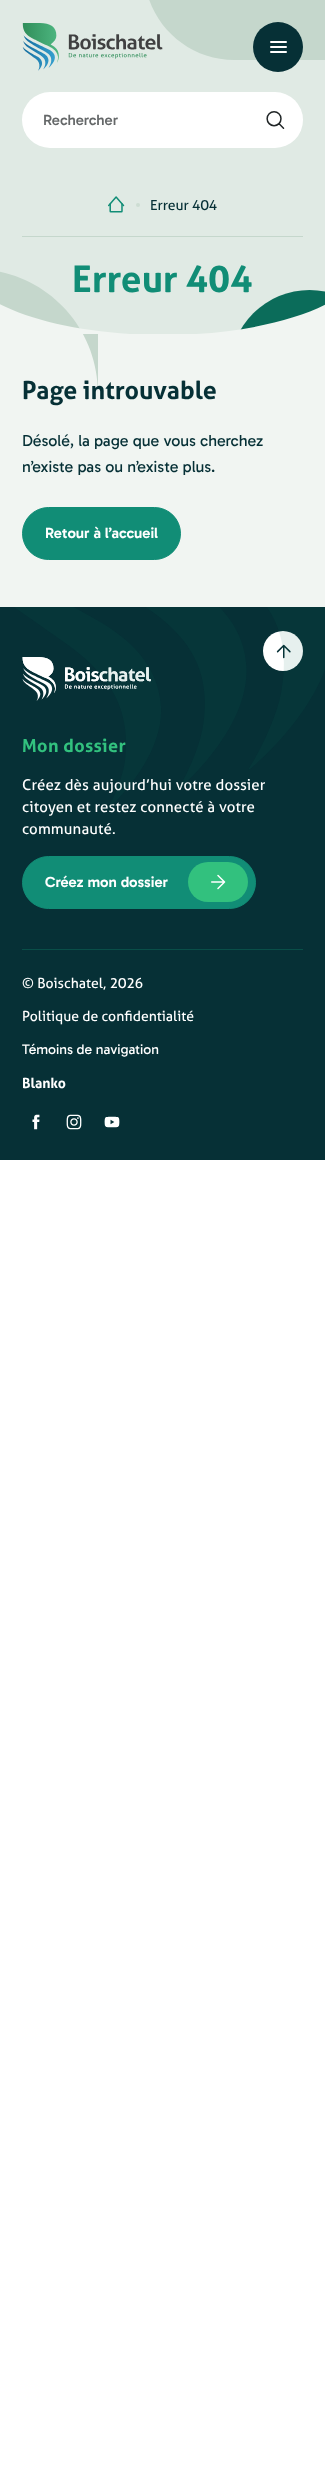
<?xml version="1.0" encoding="UTF-8"?>
<svg xmlns="http://www.w3.org/2000/svg" xmlns:xlink="http://www.w3.org/1999/xlink" width="325" height="2469">
  <defs>
    <clipPath id="clip1"><rect width="325" height="334" /></clipPath>
    <clipPath id="clip2"><rect y="261" width="325" height="73" /></clipPath>
  </defs>
  <rect width="100%" height="100%" fill="#ffffff" />
  <rect width="325" height="334" fill="#e0eae4" />
  <path d="M 144 0 h 181 v 60 h -90.5 c -50 0 -90.5 -40.5 -90.5 -90.5 z" fill="#c5d7cc" />
  <image x="22" y="23" width="141" height="48" xlink:href="image1.png" />
  <circle cx="278" cy="47" r="25" fill="#063036" />
  <rect x="270" y="41" width="17" height="2" rx="1" fill="#ffffff" />
  <rect x="270" y="46" width="17" height="2" rx="1" fill="#ffffff" />
  <rect x="270" y="51" width="17" height="2" rx="1" fill="#ffffff" />
  <rect x="22" y="92" width="281" height="56" rx="28" fill="#ffffff" />
  <image x="266" y="111" width="19" height="18" xlink:href="image2.png" />
  <rect y="334" width="325" height="273" fill="#f1f5f2" />
  <path d="M 0 269 h -26 c 68.5 0 124 55.5 124 124 v -59 h -98 z" fill="#c5d7cc" />
  <g clip-path="url(#clip1)">
    <circle cx="309.5" cy="369.5" r="79.5" fill="#0b6c5a" />
  </g>
  <g clip-path="url(#clip2)">
    <path d="M 163 335 c -111 0 -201 -33 -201 -74 v 74 z m 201 -74 c 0 41 -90 74 -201 74 h 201 z" fill="#f1f5f2" fill-rule="evenodd" />
  </g>
  <rect x="22" y="236" width="281" height="1" fill="#c5d7cc" />
  <image x="108" y="196" width="17" height="17" xlink:href="image3.png" />
  <circle cx="138" cy="205" r="2" fill="#cdddd3" />
  <rect x="22.5" y="507.5" width="158" height="52" rx="26" fill="#118d76" stroke="#118d76" />
  <rect y="607" width="325" height="553" fill="#063036" />
  <circle cx="283" cy="651" r="20" fill="#ffffff" />
  <image x="276" y="644" width="15" height="15" xlink:href="image5.png" />
  <image x="22" y="657" width="129" height="44" xlink:href="image6.png" />
  <rect x="22.5" y="856.5" width="233" height="52" rx="26" fill="#118d76" stroke="#118d76" />
  <rect x="188" y="862" width="60" height="40" rx="20" fill="#32c17e" />
  <image x="211" y="874" width="15" height="16" xlink:href="image7.png" />
  <rect x="22" y="949" width="281" height="1" fill="#094e48" />
  <image x="32" y="1114" width="8" height="16" xlink:href="image8.png" />
  <image x="66" y="1114" width="16" height="16" xlink:href="image9.png" />
  <image x="104" y="1116" width="16" height="12" xlink:href="image10.png" />
  <text x="43" y="125" style="font-family: Gabarito; font-size: 15px; font-weight: 500; fill: #646768">Rechercher</text>
  <text x="150" y="210" style="font-family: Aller; font-size: 14px; fill: #063036">Erreur 404</text>
  <text x="72" y="292" style="font-family: Aller; font-size: 37px; font-weight: bold; fill: #118d76">Erreur 404</text>
  <text x="22" y="399" style="font-family: Aller; font-size: 25px; font-weight: bold; fill: #063036">Page introuvable</text>
  <text x="22" y="446" style="font-family: Gabarito; font-size: 16px; fill: #063036">Désolé, la page que vous cherchez</text>
  <text x="22" y="472" style="font-family: Gabarito; font-size: 16px; fill: #063036">n’existe pas ou n’existe plus.</text>
  <text x="45" y="538" style="font-family: Gabarito; font-size: 15px; font-weight: 600; fill: #ffffff">Retour à l’accueil</text>
  <text x="22" y="752" style="font-family: Aller; font-size: 18px; font-weight: bold; letter-spacing: 0.4px; fill: #32c17e">Mon dossier</text>
  <text x="22" y="790" style="font-family: Aller; font-size: 15px; letter-spacing: 0.15px; fill: #ffffff">Créez dès aujourd’hui votre dossier</text>
  <text x="22" y="812" style="font-family: Aller; font-size: 15px; letter-spacing: 0.15px; fill: #ffffff">citoyen et restez connecté à votre</text>
  <image x="15" y="607" width="310" height="200" xlink:href="image4.png" />
  <text x="22" y="834" style="font-family: Aller; font-size: 15px; letter-spacing: 0.15px; fill: #ffffff">communauté.</text>
  <text x="45" y="887" style="font-family: Gabarito; font-size: 15px; font-weight: 600; fill: #ffffff">Créez mon dossier</text>
  <text x="22" y="988" style="font-family: Aller; font-size: 14px; fill: #ffffff">© Boischatel, 2026</text>
  <text x="22" y="1021" style="font-family: Aller; font-size: 14px; fill: #ffffff">Politique de confidentialité</text>
  <text x="22" y="1054" style="font-family: Gabarito; font-size: 14px; fill: #ffffff">Témoins de navigation</text>
  <text x="22" y="1088" style="font-family: Aller; font-size: 14px; font-weight: bold; fill: #ffffff">Blanko</text>
</svg>
